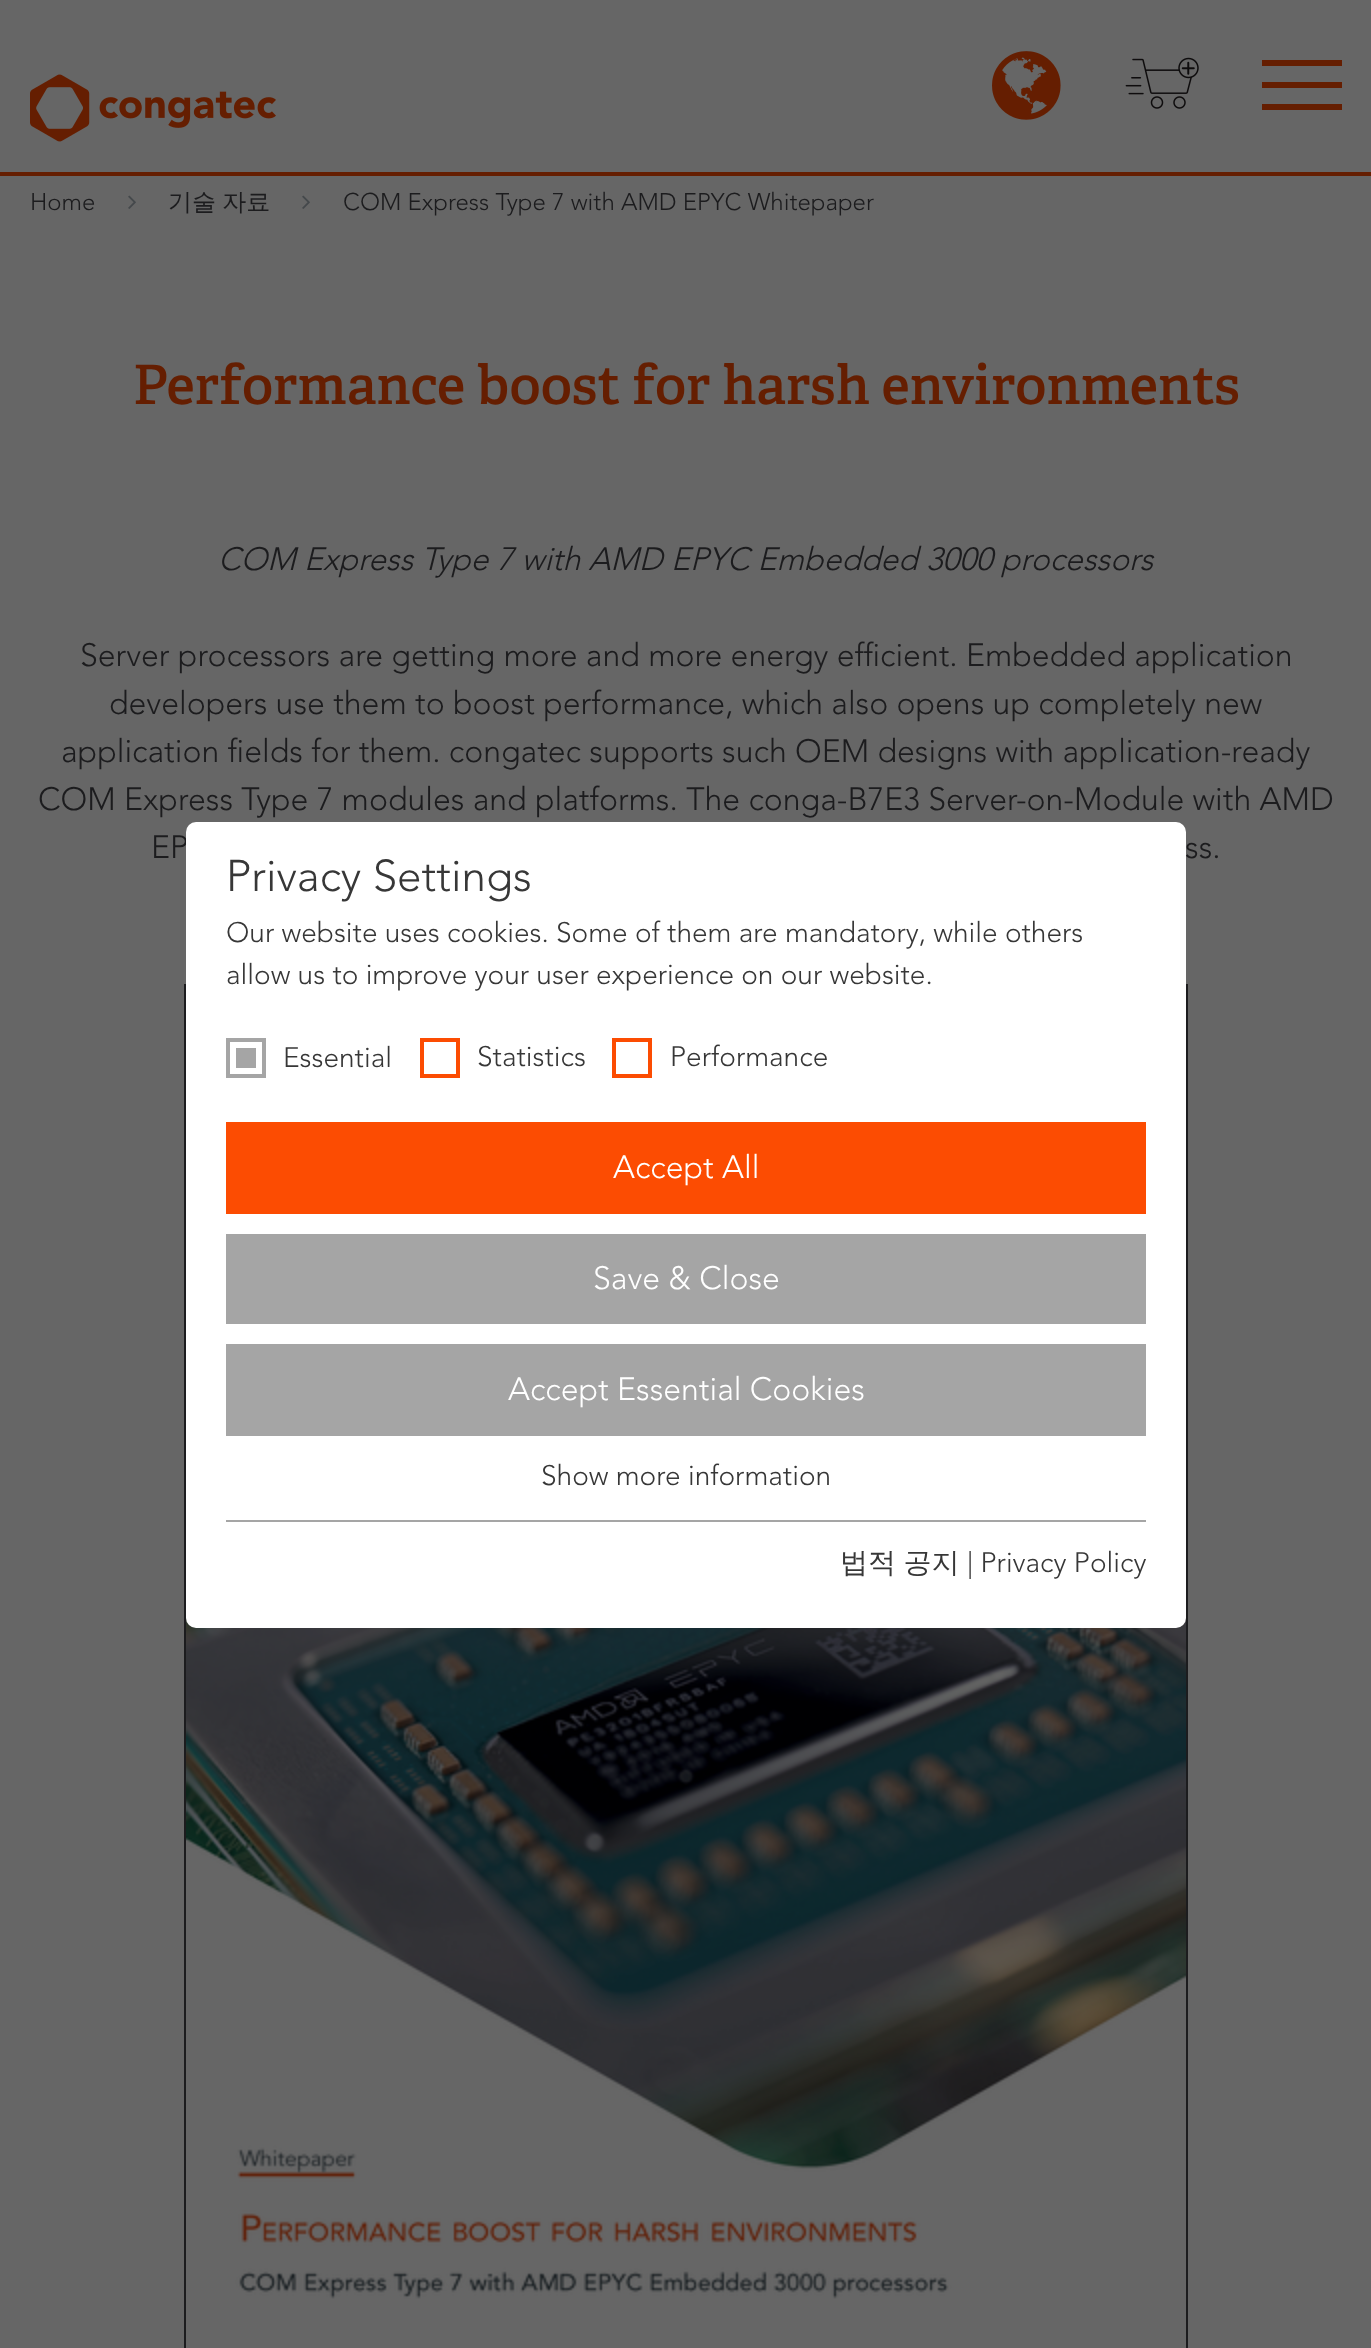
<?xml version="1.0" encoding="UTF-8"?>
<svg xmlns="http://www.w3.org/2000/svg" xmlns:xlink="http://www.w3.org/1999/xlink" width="1371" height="2348">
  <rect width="100%" height="100%" fill="#666666" />
  <rect y="172" width="1371" height="4" fill="#651e01" />
  <image x="30" y="74" width="246" height="68" xlink:href="image1.png" />
  <image x="992" y="51" width="69" height="69" xlink:href="image2.png" />
  <image x="1125" y="57" width="74" height="52" xlink:href="image3.png" />
  <rect x="1262" y="82" width="80" height="6" fill="#651e01" />
  <rect x="1262" y="60" width="80" height="6" fill="#651e01" />
  <rect x="1262" y="104" width="80" height="6" fill="#651e01" />
  <image x="128" y="195" width="8" height="14" xlink:href="image4.png" />
  <image x="302" y="195" width="8" height="14" xlink:href="image4.png" />
  <rect x="185" y="985" width="1002" height="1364" fill="none" stroke="#1c1c1e" stroke-width="2" />
  <image x="186" y="1618" width="1000" height="681" xlink:href="image5.png" />
  <text x="30" y="210" style="font-family: Avenir; font-size: 24px; font-weight: 300; fill: #1c1c1e">Home</text>
  <text x="168" y="210" word-spacing="-1" style="font-family: WenQuanYi Zen Hei; font-size: 24px; font-weight: 500; fill: #1c1c1e">기술 자료</text>
  <text x="343" y="210" style="font-family: Avenir; font-size: 24px; font-weight: 300; fill: #1c1c1e">COM Express Type 7 with AMD EPYC Whitepaper</text>
  <text x="133" y="404" style="font-family: 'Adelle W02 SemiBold'; font-size: 54.4px; font-weight: 600; fill: #651e01">Performance boost for harsh environments</text>
  <text x="218" y="570" style="font-family: Avenir; font-size: 32px; font-weight: 300; font-style: italic; fill: #1c1c1e">COM Express Type 7 with AMD EPYC Embedded 3000 processors</text>
  <text x="80" y="666" style="font-family: Avenir; font-size: 32px; font-weight: 300; fill: #1c1c1e">Server processors are getting more and more energy efficient. Embedded application</text>
  <text x="109" y="714" style="font-family: Avenir; font-size: 32px; font-weight: 300; fill: #1c1c1e">developers use them to boost performance, which also opens up completely new</text>
  <text x="61" y="762" style="font-family: Avenir; font-size: 32px; font-weight: 300; fill: #1c1c1e">application fields for them. congatec supports such OEM designs with application-ready</text>
  <text x="38" y="810" style="font-family: Avenir; font-size: 32px; font-weight: 300; fill: #1c1c1e">COM Express Type 7 modules and platforms. The conga-B7E3 Server-on-Module with AMD</text>
  <text x="151" y="858" style="font-family: Avenir; font-size: 32px; font-weight: 300; fill: #1c1c1e">EP</text>
  <text x="1185" y="858" style="font-family: Avenir; font-size: 32px; font-weight: 300; fill: #1c1c1e">ss.</text>
  <rect x="186" y="822" width="1000" height="806" rx="10" fill="#ffffff" />
  <text x="226" y="891" style="font-family: Avenir; font-size: 44px; font-weight: 300; fill: #373737">Privacy Settings</text>
  <text x="226" y="942" style="font-family: Avenir; font-size: 28px; font-weight: 300; fill: #373737">Our website uses cookies. Some of them are mandatory, while others</text>
  <text x="226" y="984" style="font-family: Avenir; font-size: 28px; font-weight: 300; fill: #373737">allow us to improve your user experience on our website.</text>
  <rect x="226" y="1038" width="40" height="40" fill="#a5a5a5" />
  <rect x="233" y="1045" width="26" height="26" fill="none" stroke="#ffffff" stroke-width="6" />
  <text x="283" y="1067" style="font-family: Avenir; font-size: 28px; font-weight: 300; fill: #373737">Essential</text>
  <rect x="422" y="1040" width="36" height="36" fill="none" stroke="#fc4c02" stroke-width="4" />
  <text x="477" y="1066" style="font-family: Avenir; font-size: 28px; font-weight: 300; fill: #373737">Statistics</text>
  <rect x="614" y="1040" width="36" height="36" fill="none" stroke="#fc4c02" stroke-width="4" />
  <text x="670" y="1066" style="font-family: Avenir; font-size: 28px; font-weight: 300; fill: #373737">Performance</text>
  <rect x="226" y="1122" width="920" height="92" fill="#fc4c02" />
  <text x="613" y="1178" style="font-family: Avenir; font-size: 32px; font-weight: 300; fill: #ffffff">Accept All</text>
  <rect x="226" y="1234" width="920" height="90" fill="#a5a5a5" />
  <text x="593" y="1289" style="font-family: Avenir; font-size: 32px; font-weight: 300; fill: #ffffff">Save &amp; Close</text>
  <rect x="226" y="1344" width="920" height="92" fill="#a5a5a5" />
  <text x="508" y="1400" style="font-family: Avenir; font-size: 32px; font-weight: 300; fill: #ffffff">Accept Essential Cookies</text>
  <text x="541" y="1485" style="font-family: Avenir; font-size: 28px; font-weight: 300; fill: #373737">Show more information</text>
  <rect x="226" y="1520" width="920" height="2" fill="#a5a5a5" />
  <text x="840" y="1572" word-spacing="-1" style="font-family: WenQuanYi Zen Hei; font-size: 28px; font-weight: 500; fill: #373737">법적 공지</text>
  <text x="967" y="1572" style="font-family: Avenir; font-size: 28px; font-weight: 300; fill: #373737">| Privacy Policy</text>
</svg>
